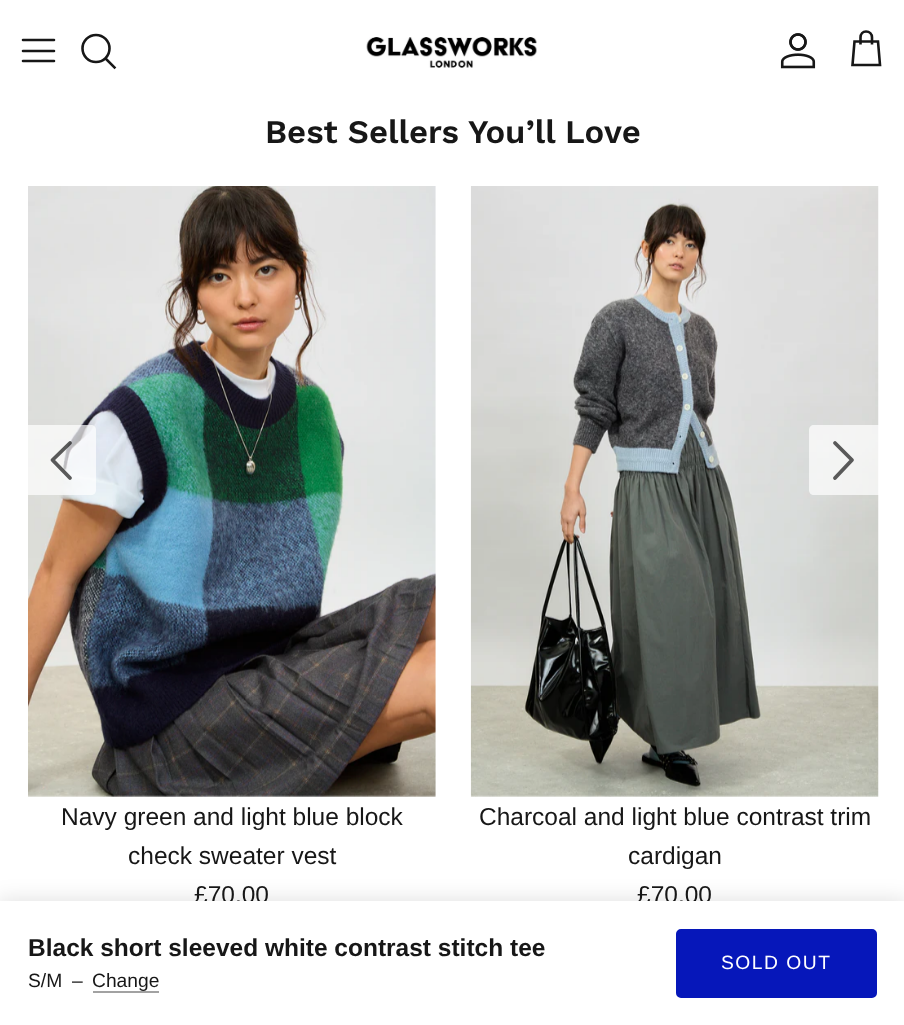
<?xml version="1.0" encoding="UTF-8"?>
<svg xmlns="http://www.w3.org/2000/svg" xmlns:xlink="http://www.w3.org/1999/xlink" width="904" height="1025">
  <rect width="100%" height="100%" fill="#ffffff" />
  <path d="M 23 51 h 31 m -31 -11 h 31 m -31 21 h 31" fill="none" stroke="#171717" stroke-width="2.6" stroke-linecap="round" stroke-linejoin="round" />
  <circle cx="96" cy="48.5" r="13.5" fill="none" stroke="#171717" stroke-width="2.6" />
  <path d="M 106.5 59.5 l 8 8" fill="none" stroke="#171717" stroke-width="2.6" stroke-linecap="square" />
  <image x="366" y="37" width="171" height="31" xlink:href="image1.png" />
  <image x="780" y="33" width="36" height="36" xlink:href="image2.png" />
  <path d="M 872 44.5 v -7 c 0 -3.5 -2.5 -6 -6 -6 c -3 0 -5.5 2.5 -5.5 6 v 7 m -6 -3 h 23.5 l 2 23.5 h -27.5 z" fill="none" stroke="#171717" stroke-width="2.6" />
  <image x="28" y="186" width="408" height="611" xlink:href="image3.png" />
  <path d="M 26 425 h 65 c 3 0 5 2 5 5 v 60 c 0 3 -2 5 -5 5 h -65 z" fill="#ffffff" fill-opacity="0.7" />
  <path d="M 70 478 l -17.5 -18 l 17.5 -17" fill="none" stroke="#171717" stroke-opacity="0.7" stroke-width="3.8" stroke-linecap="round" stroke-linejoin="round" />
  <image x="470" y="186" width="409" height="611" xlink:href="image4.png" />
  <path d="M 814 425 h 65 v 70 h -65 c -3 0 -5 -2 -5 -5 v -60 c 0 -3 2 -5 5 -5 z" fill="#ffffff" fill-opacity="0.7" />
  <path d="M 835 478 l 17 -18 l -17 -17" fill="none" stroke="#595959" stroke-width="3.8" stroke-linecap="round" stroke-linejoin="round" />
  <rect x="-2" y="900" width="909" height="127" fill="#000000" fill-opacity="0.12" filter="blur(10.5px)" />
  <text x="265" y="143" style="font-family: Work Sans; font-size: 32.9px; font-weight: 600; fill: #171717">Best Sellers You’ll Love</text>
  <text x="61" y="825" style="font-family: Arimo; font-size: 24.5px; fill: #171717">Navy green and light blue block</text>
  <text x="128" y="864" style="font-family: Arimo; font-size: 24.5px; fill: #171717">check sweater vest</text>
  <text x="194" y="903" style="font-family: Arimo; font-size: 24.5px; fill: #171717">£70.00</text>
  <text x="479" y="825" style="font-family: Arimo; font-size: 24.5px; fill: #171717">Charcoal and light blue contrast trim</text>
  <text x="628" y="864" style="font-family: Arimo; font-size: 24.5px; fill: #171717">cardigan</text>
  <text x="637" y="903" style="font-family: Arimo; font-size: 24.5px; fill: #171717">£70.00</text>
  <rect y="901" width="904" height="124" fill="#ffffff" />
  <text x="28" y="956" style="font-family: Arimo; font-size: 24.5px; font-weight: bold; fill: #171717">Black short sleeved white contrast stitch tee</text>
  <text x="28" y="987" style="font-family: Arimo; font-size: 19.25px; fill: #171717">S/M</text>
  <text x="72" y="987" style="font-family: Arimo; font-size: 19.25px; fill: #171717">–</text>
  <text x="92" y="987" style="font-family: Arimo; font-size: 19.25px; fill: #171717">Change</text>
  <rect x="93" y="991" width="66" height="2" fill="#a2a2a2" />
  <rect x="677" y="930" width="199" height="67" rx="4" fill="#0617ba" stroke="#0617ba" stroke-width="2" />
  <text x="721" y="969" style="font-family: Arimo; font-size: 19.25px; letter-spacing: 1.5px; fill: #ffffff">SOLD OUT</text>
</svg>
